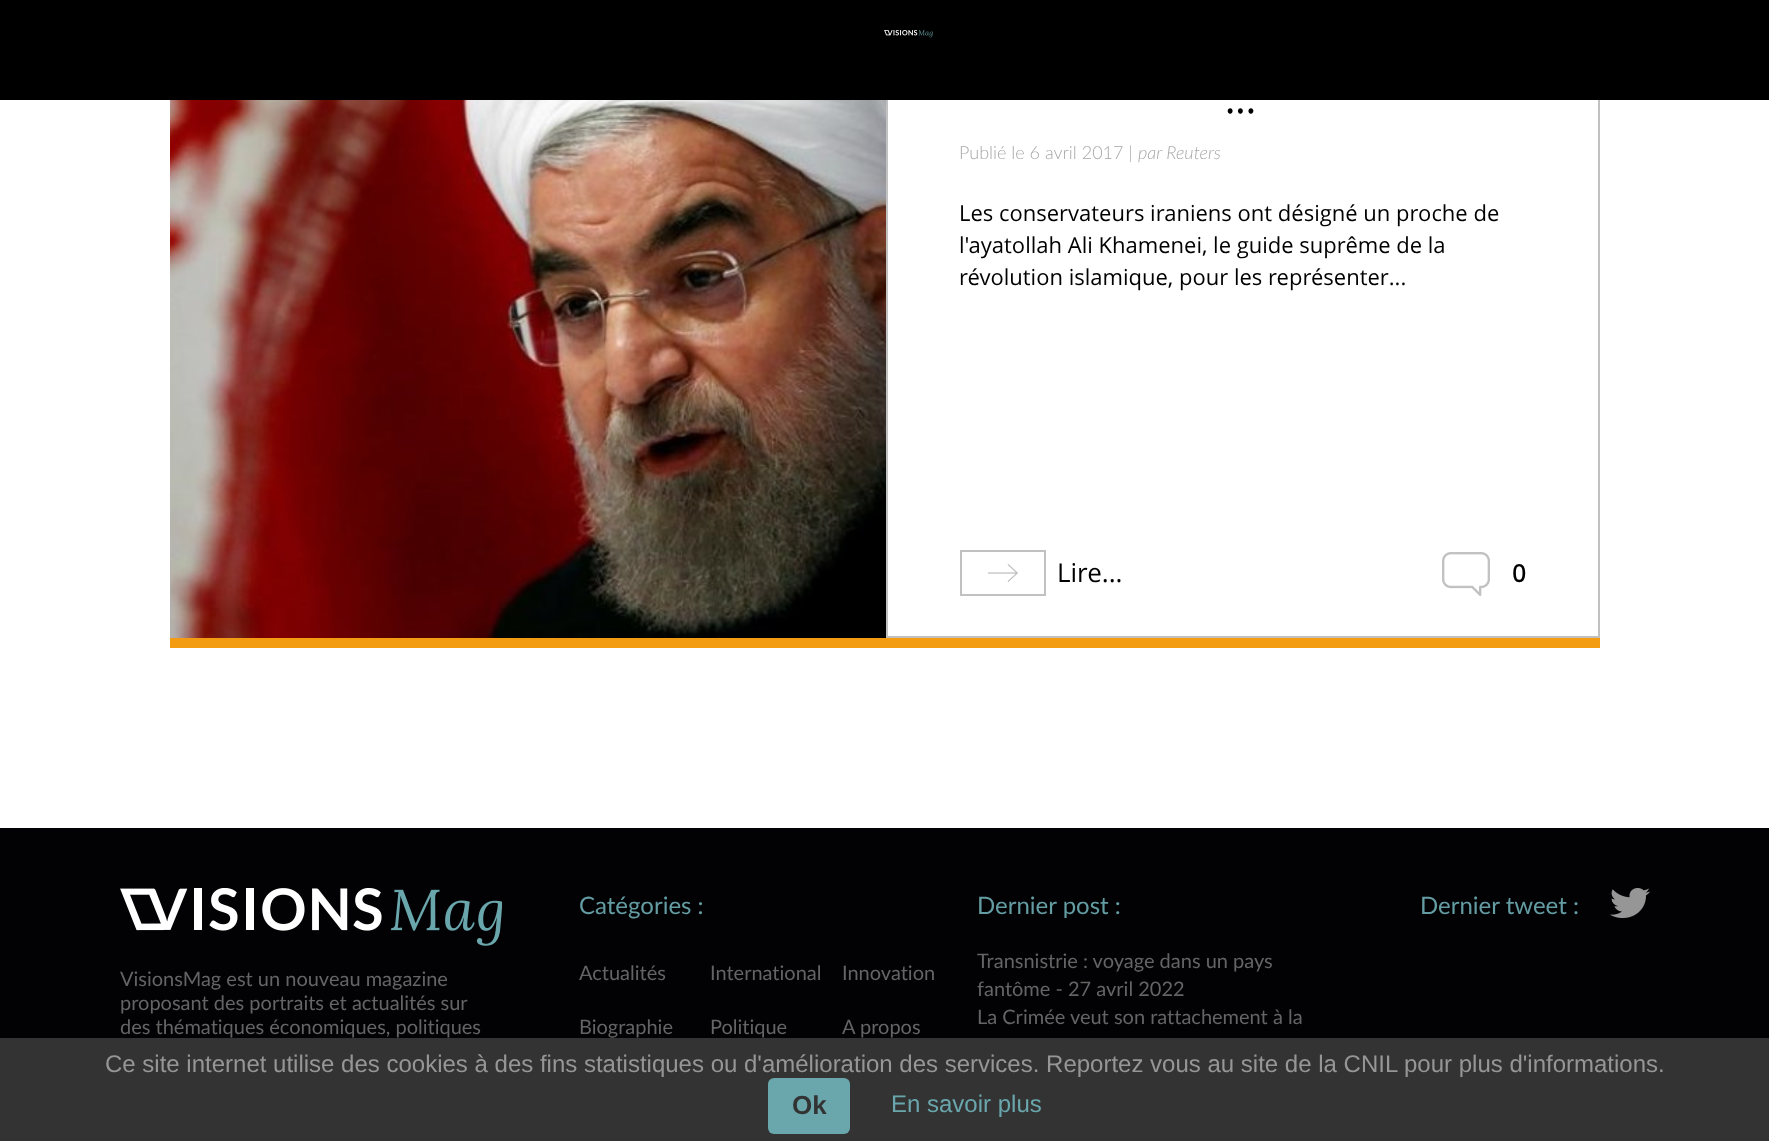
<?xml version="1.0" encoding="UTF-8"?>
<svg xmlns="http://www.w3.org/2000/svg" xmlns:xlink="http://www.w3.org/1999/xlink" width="1769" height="1141">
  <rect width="100%" height="100%" fill="#ffffff" />
  <rect x="887" y="-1" width="712" height="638" fill="none" stroke="#c1c1c1" stroke-width="2" />
  <rect width="1769" height="100" fill="#000000" />
  <image x="884" y="30" width="49" height="8" xlink:href="image1.png" />
  <rect x="170" y="638" width="1430" height="10" fill="#f39c12" />
  <image x="170" y="100" width="716" height="538" xlink:href="image2.png" />
  <rect x="961" y="551" width="84" height="44" fill="none" stroke="#c1c1c1" stroke-width="2" />
  <image x="988" y="564" width="30" height="18" xlink:href="image3.png" />
  <image x="1442" y="552" width="48" height="44" xlink:href="image4.png" />
  <rect y="828" width="1769" height="210" fill="#020204" />
  <image x="1610" y="888" width="40" height="30" xlink:href="image5.png" />
  <image x="120" y="888" width="382" height="58" xlink:href="image6.png" />
  <rect y="1038" width="1769" height="103" fill="#333333" />
  <rect x="768" y="1078" width="82" height="56" rx="6" fill="#6aa7ad" />
  <text x="1225" y="113" style="font-family: Lora; font-size: 42px; fill: #000000">...</text>
  <text x="959" y="159" style="font-family: Lato; font-size: 18px; font-weight: 300; fill: #a7a7a7">Publié le 6 avril 2017 |</text>
  <text x="1138" y="159" style="font-family: Lato; font-size: 18px; font-weight: 300; font-style: italic; fill: #a7a7a7">par Reuters</text>
  <text x="959" y="221" style="font-family: Open Sans; font-size: 22px; fill: #000000">Les conservateurs iraniens ont désigné un proche de</text>
  <text x="959" y="253" style="font-family: Open Sans; font-size: 22px; fill: #000000">l'ayatollah Ali Khamenei, le guide suprême de la</text>
  <text x="959" y="285" style="font-family: Open Sans; font-size: 22px; fill: #000000">révolution islamique, pour les représenter...</text>
  <text x="1057" y="582" style="font-family: Open Sans; font-size: 26px; fill: #000000">Lire...</text>
  <text x="1512" y="582" style="font-family: Open Sans; font-size: 24px; font-weight: bold; fill: #000000">0</text>
  <text x="579" y="914" style="font-family: Lato; font-size: 24px; fill: #639ca2">Catégories :</text>
  <text x="579" y="980" style="font-family: Lato; font-size: 20px; fill: #646464">Actualités</text>
  <text x="710" y="980" style="font-family: Lato; font-size: 20px; fill: #646464">International</text>
  <text x="842" y="980" style="font-family: Lato; font-size: 20px; fill: #646464">Innovation</text>
  <text x="579" y="1034" style="font-family: Lato; font-size: 20px; fill: #646464">Biographie</text>
  <text x="710" y="1034" style="font-family: Lato; font-size: 20px; fill: #646464">Politique</text>
  <text x="842" y="1034" style="font-family: Lato; font-size: 20px; fill: #646464">A propos</text>
  <text x="977" y="914" style="font-family: Lato; font-size: 24px; fill: #639ca2">Dernier post :</text>
  <text x="977" y="968" style="font-family: Lato; font-size: 20px; fill: #646464">Transnistrie : voyage dans un pays</text>
  <text x="977" y="996" style="font-family: Lato; font-size: 20px; fill: #646464">fantôme - 27 avril 2022</text>
  <text x="977" y="1024" style="font-family: Lato; font-size: 20px; fill: #646464">La Crimée veut son rattachement à la</text>
  <text x="1420" y="914" style="font-family: Lato; font-size: 24px; fill: #639ca2">Dernier tweet :</text>
  <text x="120" y="986" style="font-family: Lato; font-size: 20px; fill: #646464">VisionsMag est un nouveau magazine</text>
  <text x="120" y="1010" style="font-family: Lato; font-size: 20px; fill: #646464">proposant des portraits et actualités sur</text>
  <text x="120" y="1034" style="font-family: Lato; font-size: 20px; fill: #646464">des thématiques économiques, politiques</text>
  <text x="105" y="1072" style="font-family: Liberation Sans; font-size: 24px; fill: #969696">Ce site internet utilise des cookies à des fins statistiques ou d'amélioration des services. Reportez vous au site de la CNIL pour plus d'informations.</text>
  <text x="792" y="1114" style="font-family: Liberation Sans; font-size: 26px; font-weight: bold; fill: #333333">Ok</text>
  <text x="891" y="1112" style="font-family: Liberation Sans; font-size: 24px; fill: #6aa7ad">En savoir plus</text>
</svg>
